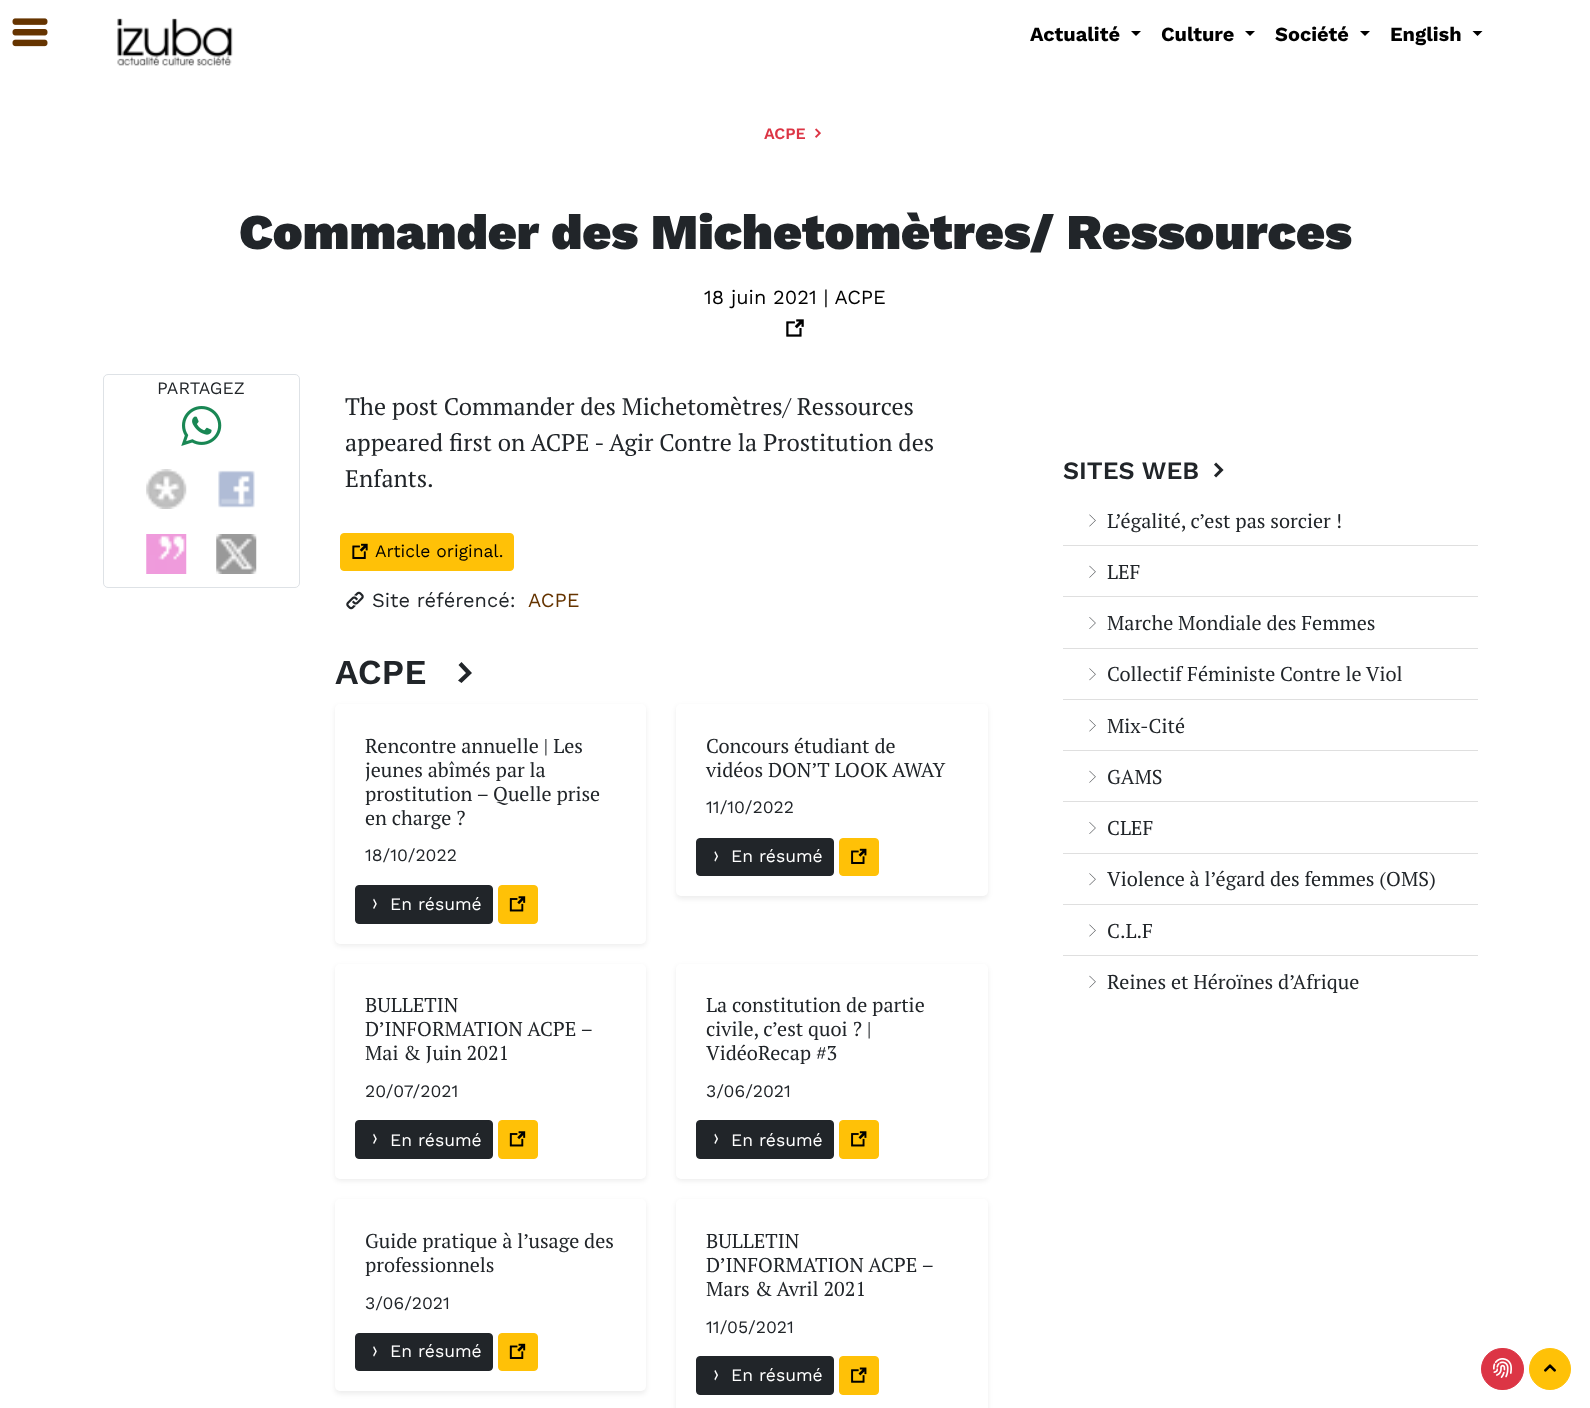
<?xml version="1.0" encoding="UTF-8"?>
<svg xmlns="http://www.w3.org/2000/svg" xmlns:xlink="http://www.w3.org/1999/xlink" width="1590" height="1408">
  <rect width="100%" height="100%" fill="#ffffff" />
  <image x="12" y="18" width="36" height="29" xlink:href="image1.png" />
  <image x="117" y="18" width="116" height="48" xlink:href="image2.png" />
  <path d="M 1131 31 h 10 l -5 5 z" fill="#000000" />
  <path d="M 1245 31 h 10 l -5 5 z" fill="#000000" />
  <path d="M 1360 31 h 10 l -5 5 z" fill="#000000" />
  <path d="M 1472.5 31 h 10 l -5 5 z" fill="#000000" />
  <image x="815" y="128" width="6" height="10" xlink:href="image3.png" />
  <image x="786" y="319" width="18" height="18" xlink:href="image4.png" />
  <rect x="103.5" y="374.5" width="196" height="213" rx="4.5" fill="none" stroke="#dee2e6" />
  <image x="181" y="406" width="41" height="40" xlink:href="image5.png" />
  <image x="146" y="469" width="41" height="40" xlink:href="image6.png" />
  <image x="218" y="470" width="37" height="38" xlink:href="image7.png" />
  <image x="146" y="534" width="41" height="40" xlink:href="image8.png" />
  <image x="216" y="534" width="41" height="40" xlink:href="image9.png" />
  <rect x="340.5" y="533.5" width="173" height="37" rx="3.5" fill="#ffc107" stroke="#ffc107" />
  <image x="352" y="543" width="16" height="16" xlink:href="image10.png" />
  <image x="346" y="591" width="18" height="19" xlink:href="image11.png" />
  <path d="M 461.5 683 l 10.5 -10 l -10.5 -11 l -3 3 l 7.5 8 l -8 7.5 z" fill="#212529" />
  <rect x="335" y="706" width="311" height="240" rx="5" fill="#000000" fill-opacity="0.07" filter="blur(2.5px)" />
  <rect x="335" y="704" width="311" height="240" rx="5" fill="#ffffff" />
  <rect x="355.5" y="885.5" width="137" height="38" rx="3.5" fill="#212529" stroke="#212529" />
  <image x="373" y="898" width="4" height="11" xlink:href="image12.png" />
  <rect x="498.5" y="885.5" width="39" height="38" rx="3.5" fill="#ffc107" stroke="#ffc107" />
  <image x="509" y="896" width="17" height="16" xlink:href="image13.png" />
  <rect x="676" y="706" width="312" height="193" rx="5" fill="#000000" fill-opacity="0.07" filter="blur(2.5px)" />
  <rect x="676" y="704" width="312" height="192" rx="5" fill="#ffffff" />
  <rect x="696.5" y="838.5" width="137" height="37" rx="3.5" fill="#212529" stroke="#212529" />
  <image x="714" y="851" width="4" height="11" xlink:href="image14.png" />
  <rect x="839.5" y="838.5" width="39" height="37" rx="3.5" fill="#ffc107" stroke="#ffc107" />
  <image x="851" y="848" width="16" height="16" xlink:href="image15.png" />
  <rect x="335" y="966" width="311" height="215" rx="5" fill="#000000" fill-opacity="0.07" filter="blur(2.5px)" />
  <rect x="335" y="964" width="311" height="215" rx="5" fill="#ffffff" />
  <rect x="355.5" y="1120.5" width="137" height="38" rx="3.5" fill="#212529" stroke="#212529" />
  <image x="373" y="1133" width="4" height="11" xlink:href="image12.png" />
  <rect x="498.5" y="1120.5" width="39" height="38" rx="3.5" fill="#ffc107" stroke="#ffc107" />
  <image x="509" y="1131" width="17" height="16" xlink:href="image13.png" />
  <rect x="676" y="966" width="312" height="215" rx="5" fill="#000000" fill-opacity="0.07" filter="blur(2.5px)" />
  <rect x="676" y="964" width="312" height="215" rx="5" fill="#ffffff" />
  <rect x="696.5" y="1120.5" width="137" height="38" rx="3.5" fill="#212529" stroke="#212529" />
  <image x="714" y="1133" width="4" height="11" xlink:href="image16.png" />
  <rect x="839.5" y="1120.5" width="39" height="38" rx="3.5" fill="#ffc107" stroke="#ffc107" />
  <image x="851" y="1131" width="16" height="16" xlink:href="image17.png" />
  <rect x="335" y="1201" width="311" height="193" rx="5" fill="#000000" fill-opacity="0.07" filter="blur(2.5px)" />
  <rect x="335" y="1199" width="311" height="192" rx="5" fill="#ffffff" />
  <rect x="355.5" y="1333.5" width="137" height="37" rx="3.5" fill="#212529" stroke="#212529" />
  <image x="373" y="1346" width="4" height="11" xlink:href="image18.png" />
  <rect x="498.5" y="1333.5" width="39" height="37" rx="3.5" fill="#ffc107" stroke="#ffc107" />
  <image x="509" y="1343" width="17" height="16" xlink:href="image19.png" />
  <rect x="676" y="1201" width="312" height="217" rx="5" fill="#000000" fill-opacity="0.07" filter="blur(2.5px)" />
  <rect x="676" y="1199" width="312" height="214" rx="5" fill="#ffffff" />
  <rect x="696.5" y="1356.5" width="137" height="38" rx="3.5" fill="#212529" stroke="#212529" />
  <image x="714" y="1370" width="4" height="11" xlink:href="image20.png" />
  <rect x="839.5" y="1356.5" width="39" height="38" rx="3.5" fill="#ffc107" stroke="#ffc107" />
  <image x="851" y="1367" width="16" height="16" xlink:href="image21.png" />
  <image x="1214" y="462" width="10" height="16" xlink:href="image22.png" />
  <rect x="1063" y="545" width="415" height="1" fill="#dfdfdf" />
  <image x="1089" y="514" width="7" height="13" xlink:href="image23.png" />
  <rect x="1063" y="596" width="415" height="1" fill="#dfdfdf" />
  <image x="1089" y="565" width="7" height="13" xlink:href="image24.png" />
  <rect x="1063" y="648" width="415" height="1" fill="#dfdfdf" />
  <image x="1089" y="617" width="7" height="12" xlink:href="image25.png" />
  <rect x="1063" y="699" width="415" height="1" fill="#dfdfdf" />
  <image x="1089" y="668" width="7" height="13" xlink:href="image26.png" />
  <rect x="1063" y="750" width="415" height="1" fill="#dfdfdf" />
  <image x="1089" y="719" width="7" height="13" xlink:href="image23.png" />
  <rect x="1063" y="801" width="415" height="1" fill="#dfdfdf" />
  <image x="1089" y="770" width="7" height="13" xlink:href="image24.png" />
  <rect x="1063" y="853" width="415" height="1" fill="#dfdfdf" />
  <image x="1089" y="822" width="7" height="12" xlink:href="image25.png" />
  <rect x="1063" y="904" width="415" height="1" fill="#dfdfdf" />
  <image x="1089" y="873" width="7" height="13" xlink:href="image26.png" />
  <rect x="1063" y="955" width="415" height="1" fill="#dfdfdf" />
  <image x="1089" y="924" width="7" height="13" xlink:href="image23.png" />
  <image x="1089" y="975" width="7" height="13" xlink:href="image24.png" />
  <rect x="1481.5" y="1348.5" width="42" height="41" rx="20.5" fill="#dc3545" stroke="#dc3545" />
  <image x="1493" y="1358" width="19" height="20" xlink:href="image27.png" />
  <circle cx="1550" cy="1369" r="20.5" fill="#ffc107" stroke="#ffc107" />
  <image x="1544" y="1364" width="12" height="8" xlink:href="image28.png" />
  <text x="1030" y="41" style="font-family: Work Sans; font-size: 20px; font-weight: bold; fill: #000000">Actualité</text>
  <text x="1161" y="41" style="font-family: Work Sans; font-size: 20px; font-weight: bold; fill: #000000">Culture</text>
  <text x="1275" y="41" style="font-family: Work Sans; font-size: 20px; font-weight: bold; fill: #000000">Société</text>
  <text x="1390" y="41" style="font-family: Work Sans; font-size: 20px; font-weight: bold; fill: #000000">English</text>
  <text x="764" y="139" style="font-family: Work Sans; font-size: 16px; font-weight: 600; fill: #dc3545">ACPE</text>
  <text x="239" y="249" style="font-family: Work Sans; font-size: 50px; font-weight: 900; fill: #212529">Commander des Michetomètres/ Ressources</text>
  <text x="704" y="304" style="font-family: Work Sans; font-size: 20px; fill: #000000">18 juin 2021 | ACPE</text>
  <text x="157" y="394" style="font-family: Work Sans; font-size: 17.5px; fill: #212529">PARTAGEZ</text>
  <text x="345" y="415" style="font-family: PT Serif; font-size: 24px; fill: #212529">The post Commander des Michetomètres/ Ressources</text>
  <text x="345" y="451" style="font-family: PT Serif; font-size: 24px; fill: #212529">appeared first on ACPE - Agir Contre la Prostitution des</text>
  <text x="345" y="487" style="font-family: PT Serif; font-size: 24px; fill: #212529">Enfants.</text>
  <text x="375" y="557" style="font-family: Work Sans; font-size: 17.5px; fill: #000000">Article original.</text>
  <text x="372" y="607" style="font-family: Work Sans; font-size: 20px; fill: #212529">Site référencé:</text>
  <text x="528" y="607" style="font-family: Work Sans; font-size: 20px; fill: #653400">ACPE</text>
  <text x="335" y="684" style="font-family: Work Sans; font-size: 35px; font-weight: 600; fill: #212529">ACPE</text>
  <text x="365" y="753" style="font-family: PT Serif; font-size: 20px; fill: #212529">Rencontre annuelle | Les</text>
  <text x="365" y="777" style="font-family: PT Serif; font-size: 20px; fill: #212529">jeunes abîmés par la</text>
  <text x="365" y="801" style="font-family: PT Serif; font-size: 20px; fill: #212529">prostitution – Quelle prise</text>
  <text x="365" y="825" style="font-family: PT Serif; font-size: 20px; fill: #212529">en charge ?</text>
  <text x="365" y="861" style="font-family: Work Sans; font-size: 17.5px; fill: #212529">18/10/2022</text>
  <text x="390" y="910" style="font-family: Work Sans; font-size: 17.5px; fill: #ffffff">En résumé</text>
  <text x="706" y="753" style="font-family: PT Serif; font-size: 20px; fill: #212529">Concours étudiant de</text>
  <text x="706" y="777" style="font-family: PT Serif; font-size: 20px; fill: #212529">vidéos DON’T LOOK AWAY</text>
  <text x="706" y="813" style="font-family: Work Sans; font-size: 17.5px; fill: #212529">11/10/2022</text>
  <text x="731" y="862" style="font-family: Work Sans; font-size: 17.5px; fill: #ffffff">En résumé</text>
  <text x="365" y="1012" style="font-family: PT Serif; font-size: 20px; fill: #212529">BULLETIN</text>
  <text x="365" y="1036" style="font-family: PT Serif; font-size: 20px; fill: #212529">D’INFORMATION ACPE –</text>
  <text x="365" y="1060" style="font-family: PT Serif; font-size: 20px; fill: #212529">Mai &amp; Juin 2021</text>
  <text x="365" y="1097" style="font-family: Work Sans; font-size: 17.5px; fill: #212529">20/07/2021</text>
  <text x="390" y="1146" style="font-family: Work Sans; font-size: 17.5px; fill: #ffffff">En résumé</text>
  <text x="706" y="1012" style="font-family: PT Serif; font-size: 20px; fill: #212529">La constitution de partie</text>
  <text x="706" y="1036" style="font-family: PT Serif; font-size: 20px; fill: #212529">civile, c’est quoi ? |</text>
  <text x="706" y="1060" style="font-family: PT Serif; font-size: 20px; fill: #212529">VidéoRecap #3</text>
  <text x="706" y="1097" style="font-family: Work Sans; font-size: 17.5px; fill: #212529">3/06/2021</text>
  <text x="731" y="1146" style="font-family: Work Sans; font-size: 17.5px; fill: #ffffff">En résumé</text>
  <text x="365" y="1248" style="font-family: PT Serif; font-size: 20px; fill: #212529">Guide pratique à l’usage des</text>
  <text x="365" y="1272" style="font-family: PT Serif; font-size: 20px; fill: #212529">professionnels</text>
  <text x="365" y="1309" style="font-family: Work Sans; font-size: 17.5px; fill: #212529">3/06/2021</text>
  <text x="390" y="1357" style="font-family: Work Sans; font-size: 17.5px; fill: #ffffff">En résumé</text>
  <text x="706" y="1248" style="font-family: PT Serif; font-size: 20px; fill: #212529">BULLETIN</text>
  <text x="706" y="1272" style="font-family: PT Serif; font-size: 20px; fill: #212529">D’INFORMATION ACPE –</text>
  <text x="706" y="1296" style="font-family: PT Serif; font-size: 20px; fill: #212529">Mars &amp; Avril 2021</text>
  <text x="706" y="1333" style="font-family: Work Sans; font-size: 17.5px; fill: #212529">11/05/2021</text>
  <text x="731" y="1381" style="font-family: Work Sans; font-size: 17.5px; fill: #ffffff">En résumé</text>
  <text x="1063" y="479" style="font-family: Work Sans; font-size: 25px; font-weight: 600; fill: #212529">SITES WEB</text>
  <text x="1107" y="528" style="font-family: PT Serif; font-size: 20px; fill: #212529">L’égalité, c’est pas sorcier !</text>
  <text x="1107" y="579" style="font-family: PT Serif; font-size: 20px; fill: #212529">LEF</text>
  <text x="1107" y="630" style="font-family: PT Serif; font-size: 20px; fill: #212529">Marche Mondiale des Femmes</text>
  <text x="1107" y="681" style="font-family: PT Serif; font-size: 20px; fill: #212529">Collectif Féministe Contre le Viol</text>
  <text x="1107" y="733" style="font-family: PT Serif; font-size: 20px; fill: #212529">Mix-Cité</text>
  <text x="1107" y="784" style="font-family: PT Serif; font-size: 20px; fill: #212529">GAMS</text>
  <text x="1107" y="835" style="font-family: PT Serif; font-size: 20px; fill: #212529">CLEF</text>
  <text x="1107" y="886" style="font-family: PT Serif; font-size: 20px; fill: #212529">Violence à l’égard des femmes (OMS)</text>
  <text x="1107" y="938" style="font-family: PT Serif; font-size: 20px; fill: #212529">C.L.F</text>
  <text x="1107" y="989" style="font-family: PT Serif; font-size: 20px; fill: #212529">Reines et Héroïnes d’Afrique</text>
</svg>
